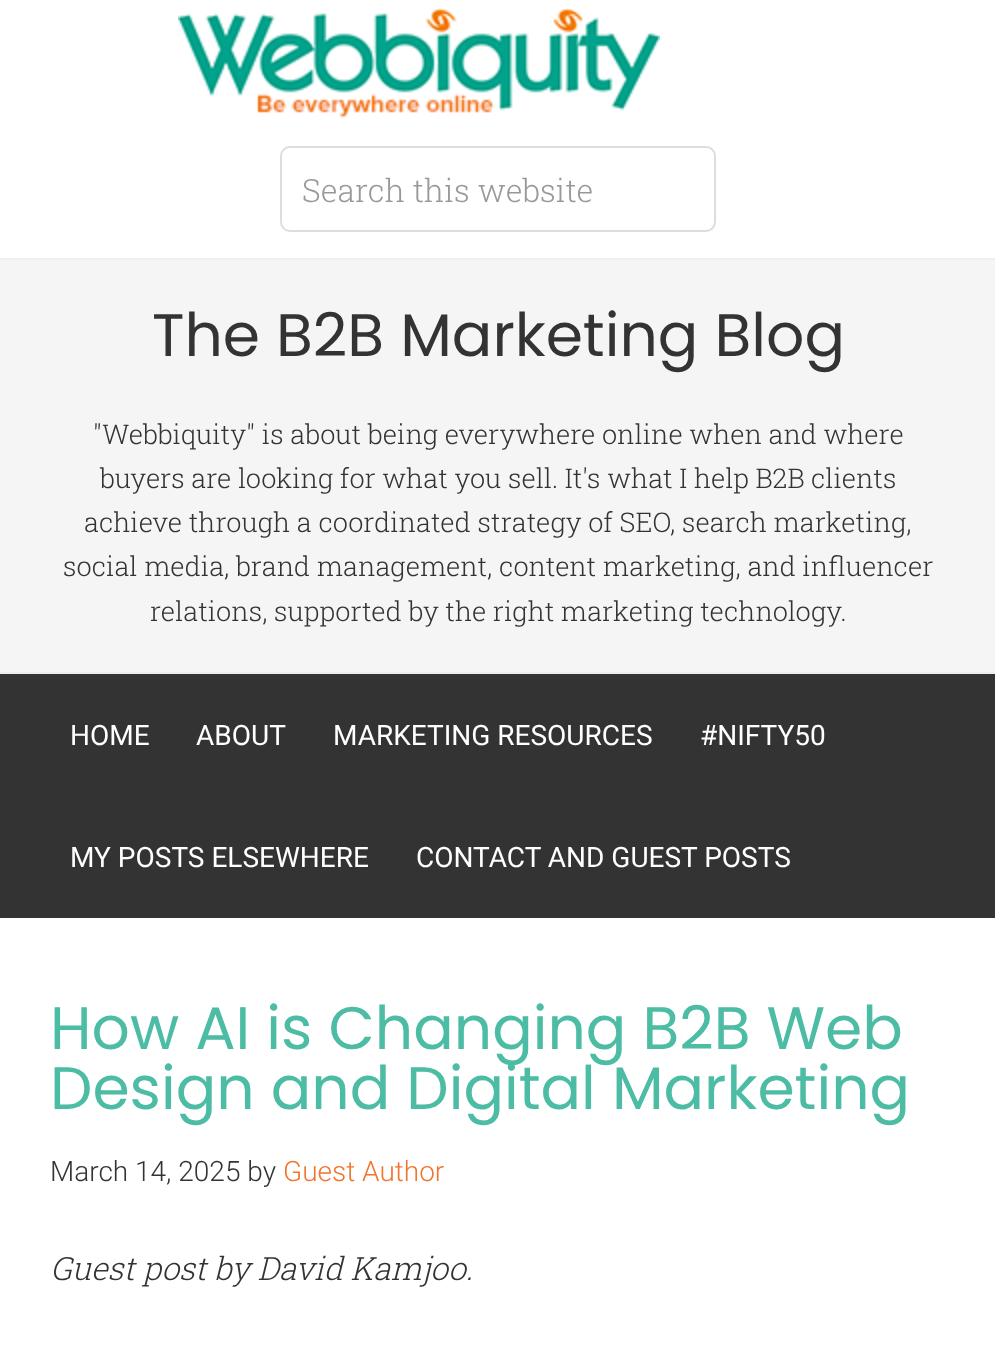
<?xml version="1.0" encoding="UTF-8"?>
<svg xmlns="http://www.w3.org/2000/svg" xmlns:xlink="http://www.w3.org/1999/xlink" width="995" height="1345">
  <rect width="100%" height="100%" fill="#ffffff" />
  <rect y="258" width="995" height="2" fill="#eeeeee" />
  <image x="178" y="7" width="482" height="112" xlink:href="image1.png" />
  <rect x="281" y="147" width="434" height="84" rx="9" fill="none" stroke="#dddddd" stroke-width="2" />
  <rect y="260" width="995" height="412" fill="#f5f5f5" />
  <rect y="672" width="995" height="2" fill="#eeeeee" />
  <rect y="674" width="995" height="244" fill="#333333" />
  <text x="302" y="202" style="font-family: Roboto Slab; font-size: 32px; font-weight: 300; fill: #999999">Search this website</text>
  <text x="152" y="356" style="font-family: Poppins; font-size: 60px; fill: #333333">The B2B Marketing Blog</text>
  <text x="93" y="444" style="font-family: Roboto Slab; font-size: 27.2px; font-weight: 300; fill: #333333">"Webbiquity" is about being everywhere online when and where</text>
  <text x="100" y="488" style="font-family: Roboto Slab; font-size: 27.2px; font-weight: 300; fill: #333333">buyers are looking for what you sell. It's what I help B2B clients</text>
  <text x="84" y="532" style="font-family: Roboto Slab; font-size: 27.2px; font-weight: 300; fill: #333333">achieve through a coordinated strategy of SEO, search marketing,</text>
  <text x="63" y="576" style="font-family: Roboto Slab; font-size: 27.2px; font-weight: 300; fill: #333333">social media, brand management, content marketing, and influencer</text>
  <text x="150" y="621" style="font-family: Roboto Slab; font-size: 27.2px; font-weight: 300; fill: #333333">relations, supported by the right marketing technology.</text>
  <text x="70" y="745" style="font-family: Roboto; font-size: 28px; fill: #ffffff">HOME</text>
  <text x="196" y="745" style="font-family: Roboto; font-size: 28px; fill: #ffffff">ABOUT</text>
  <text x="333" y="745" style="font-family: Roboto; font-size: 28px; fill: #ffffff">MARKETING RESOURCES</text>
  <text x="700" y="745" style="font-family: Roboto; font-size: 28px; fill: #ffffff">#NIFTY50</text>
  <text x="70" y="867" style="font-family: Roboto; font-size: 28px; fill: #ffffff">MY POSTS ELSEWHERE</text>
  <text x="416" y="867" style="font-family: Roboto; font-size: 28px; fill: #ffffff">CONTACT AND GUEST POSTS</text>
  <text x="50" y="1049" style="font-family: Poppins; font-size: 60px; fill: #4cbca4">How AI is Changing B2B Web</text>
  <text x="50" y="1109" style="font-family: Poppins; font-size: 60px; fill: #4cbca4">Design and Digital Marketing</text>
  <text x="50" y="1181" style="font-family: Roboto; font-size: 28px; font-weight: 300; fill: #333333">March 14, 2025 by</text>
  <text x="283" y="1181" style="font-family: Roboto; font-size: 28px; font-weight: 300; fill: #f0752d">Guest Author</text>
  <text x="50" y="1280" style="font-family: Roboto Slab; font-size: 32px; font-weight: 300; font-style: italic; fill: #333333">Guest post by David Kamjoo.</text>
</svg>
